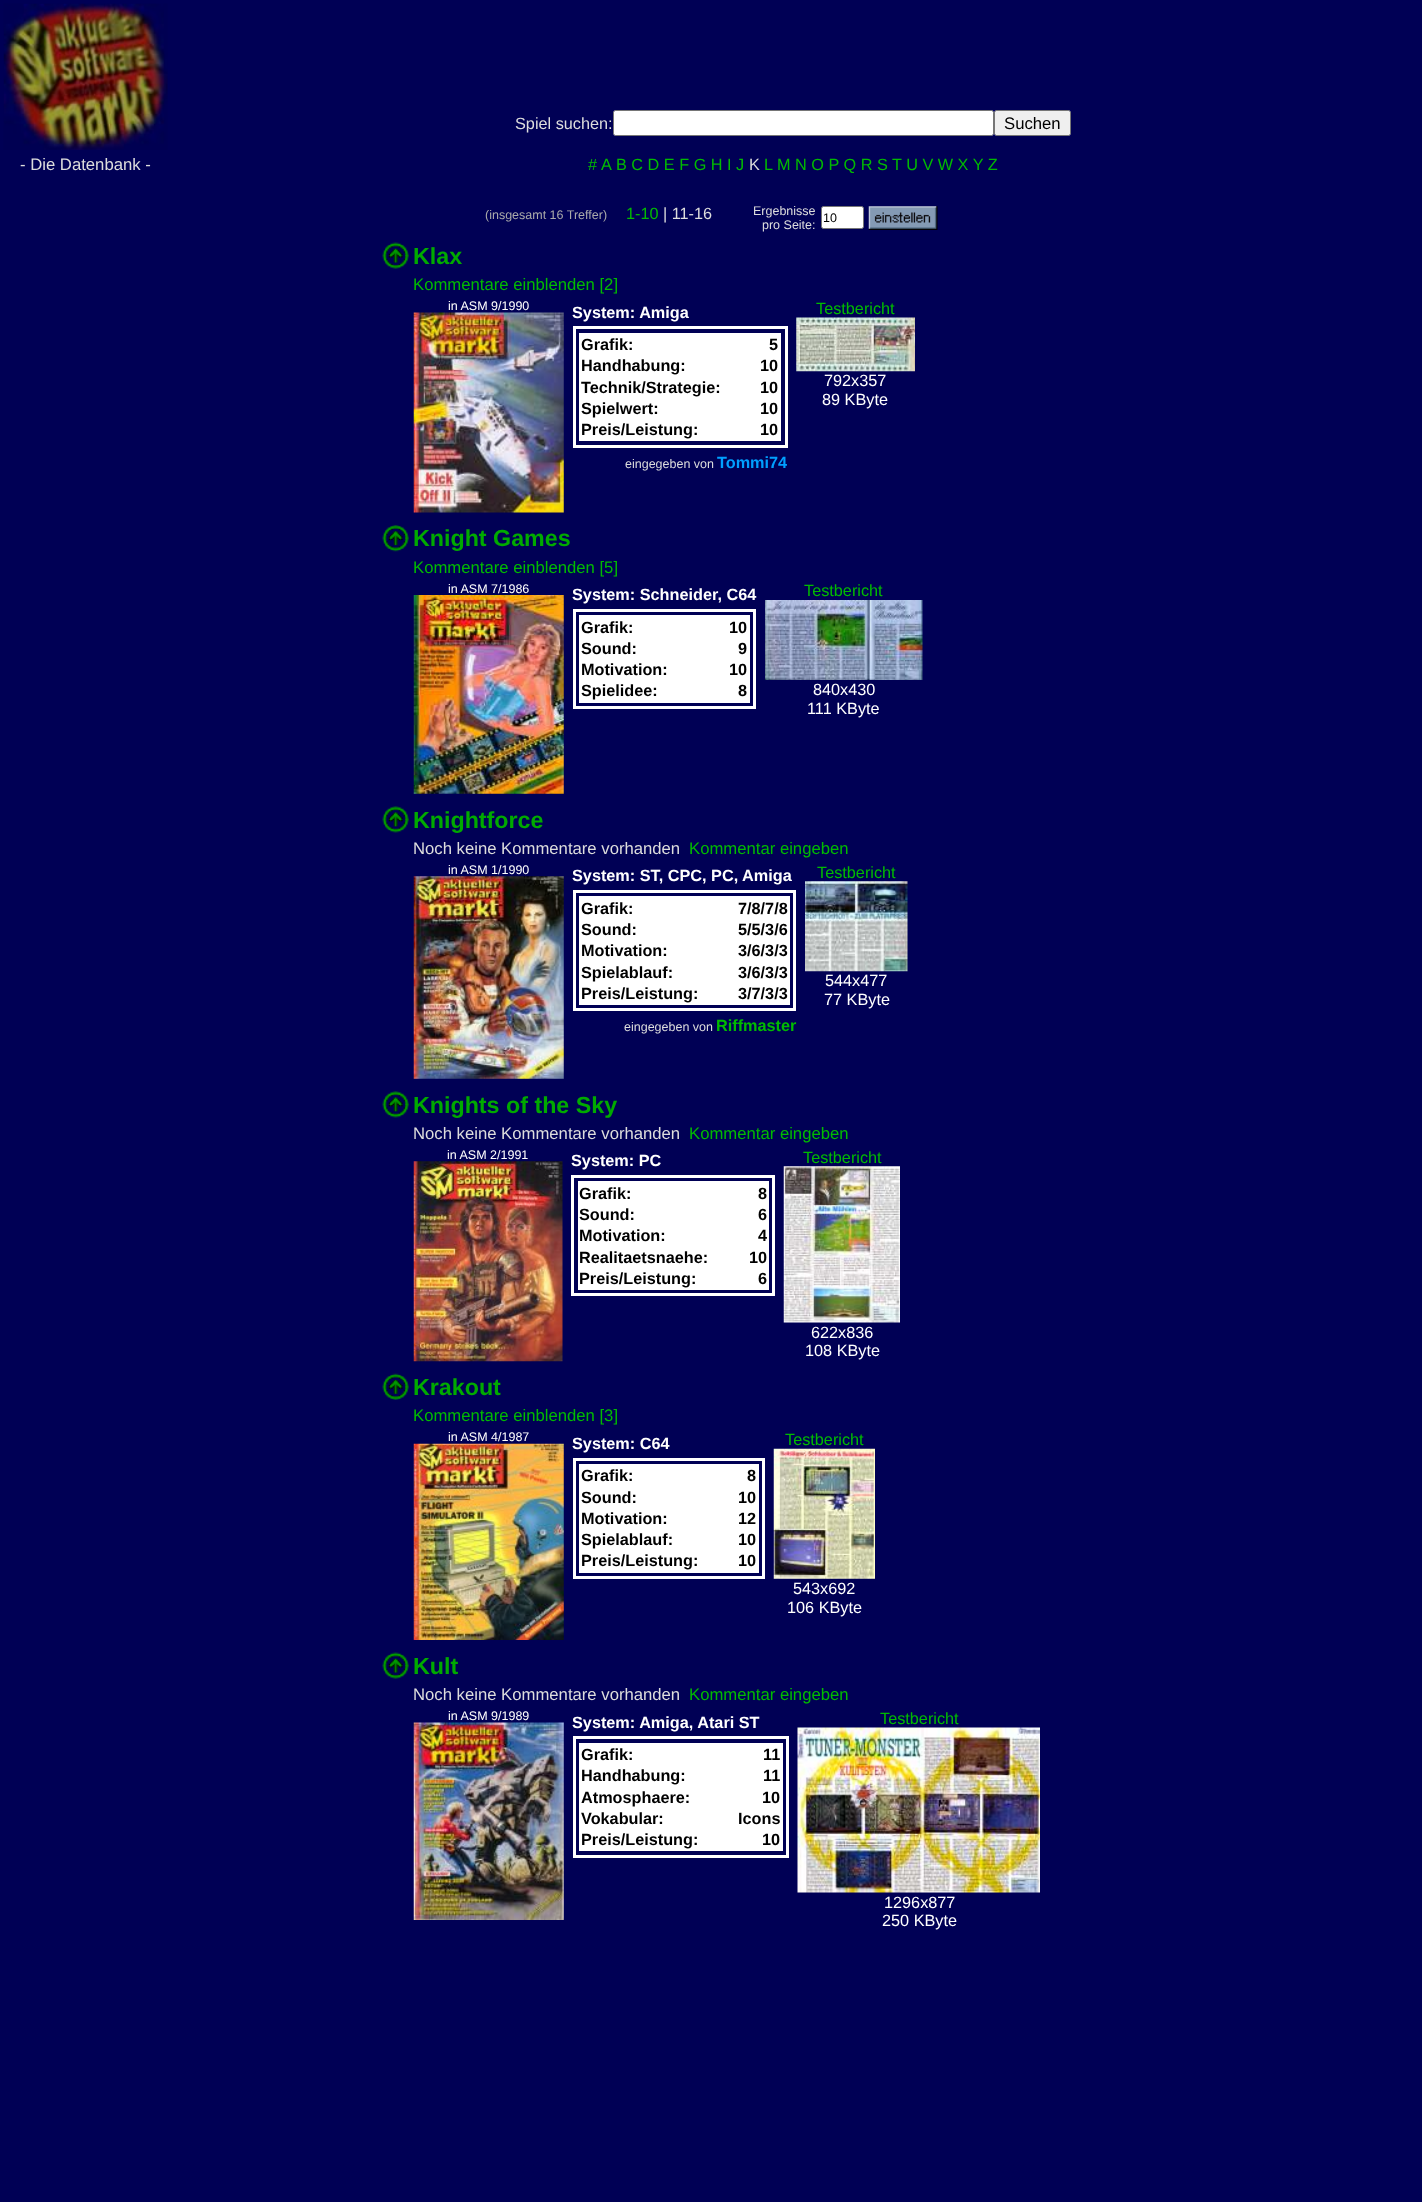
<?xml version="1.0" encoding="UTF-8"?>
<svg xmlns="http://www.w3.org/2000/svg" xmlns:xlink="http://www.w3.org/1999/xlink" width="1422" height="2202">
  <rect width="100%" height="100%" fill="#000055" />
  <image x="3" y="3" width="165" height="147" xlink:href="image1.png" />
  <rect x="613" y="110" width="458" height="26" fill="#000066" />
  <rect x="613.5" y="110.5" width="380" height="25" rx="2" fill="#ffffff" stroke="#767676" />
  <rect x="994.5" y="110.5" width="76" height="25" rx="2" fill="#efefef" stroke="#767676" />
  <rect x="821.5" y="206.5" width="42" height="22" rx="2" fill="#ffffff" stroke="#767676" />
  <image x="868" y="206" width="70" height="24" xlink:href="image2.png" />
  <image x="382" y="242" width="27" height="27" xlink:href="image3.png" />
  <image x="413" y="312" width="151" height="201" xlink:href="image4.png" />
  <rect x="574.5" y="327.5" width="212" height="119" fill="none" stroke="#ffffff" stroke-width="3" />
  <rect x="579" y="333" width="202" height="108" fill="#ffffff" />
  <image x="796" y="317" width="119" height="55" xlink:href="image5.png" />
  <image x="382" y="525" width="27" height="27" xlink:href="image6.png" />
  <image x="413" y="595" width="151" height="199" xlink:href="image7.png" />
  <rect x="574.5" y="610.5" width="180" height="97" fill="none" stroke="#ffffff" stroke-width="3" />
  <rect x="579" y="615" width="171" height="88" fill="#ffffff" />
  <image x="765" y="600" width="158" height="80" xlink:href="image8.png" />
  <image x="382" y="806" width="27" height="27" xlink:href="image9.png" />
  <image x="413" y="876" width="151" height="203" xlink:href="image10.png" />
  <rect x="574.5" y="891.5" width="220" height="118" fill="none" stroke="#ffffff" stroke-width="3" />
  <rect x="579" y="896" width="211" height="109" fill="#ffffff" />
  <image x="805" y="881" width="103" height="91" xlink:href="image11.png" />
  <image x="382" y="1091" width="27" height="27" xlink:href="image9.png" />
  <image x="413" y="1161" width="150" height="201" xlink:href="image12.png" />
  <rect x="572.5" y="1176.5" width="201" height="118" fill="none" stroke="#ffffff" stroke-width="3" />
  <rect x="578" y="1181" width="191" height="109" fill="#ffffff" />
  <image x="783" y="1166" width="117" height="157" xlink:href="image13.png" />
  <image x="382" y="1373" width="27" height="27" xlink:href="image14.png" />
  <image x="413" y="1443" width="151" height="197" xlink:href="image15.png" />
  <rect x="574.5" y="1459.5" width="189" height="118" fill="none" stroke="#ffffff" stroke-width="3" />
  <rect x="579" y="1464" width="180" height="109" fill="#ffffff" />
  <image x="773" y="1448" width="102" height="131" xlink:href="image16.png" />
  <image x="382" y="1652" width="27" height="27" xlink:href="image3.png" />
  <image x="413" y="1722" width="151" height="198" xlink:href="image17.png" />
  <rect x="574.5" y="1737.5" width="213" height="119" fill="none" stroke="#ffffff" stroke-width="3" />
  <rect x="579" y="1743" width="204" height="108" fill="#ffffff" />
  <image x="797" y="1727" width="243" height="166" xlink:href="image18.png" />
  <text x="20" y="170" style="font-family: Liberation Sans; font-size: 16.7px; fill: #dddddd">- Die Datenbank -</text>
  <text x="515" y="129" style="font-family: Liberation Sans; font-size: 16.25px; fill: #dddddd">Spiel suchen:</text>
  <text x="1004" y="129" style="font-family: Liberation Sans; font-size: 16.7px; fill: #000000">Suchen</text>
  <text x="588" y="170" style="font-family: Liberation Sans; font-size: 16.25px; fill: #00bb00">#</text>
  <text x="601" y="170" style="font-family: Liberation Sans; font-size: 16.25px; fill: #00bb00">A</text>
  <text x="616" y="170" style="font-family: Liberation Sans; font-size: 16.25px; fill: #00bb00">B C D E F G H I J</text>
  <text x="749" y="170" style="font-family: Liberation Sans; font-size: 16.25px; fill: #dddddd">K</text>
  <text x="764" y="170" style="font-family: Liberation Sans; font-size: 16.25px; fill: #00bb00">L</text>
  <text x="777" y="170" style="font-family: Liberation Sans; font-size: 16.25px; fill: #00bb00">M N O P Q R S T U V W X Y Z</text>
  <text x="485" y="219" style="font-family: Liberation Sans; font-size: 12.5px; fill: #aaaaaa">(insgesamt 16 Treffer)</text>
  <text x="626" y="219" style="font-family: Liberation Sans; font-size: 16.25px; fill: #00bb00">1-10</text>
  <text x="663" y="219" style="font-family: Liberation Sans; font-size: 16.25px; fill: #dddddd">| 11-16</text>
  <text x="753" y="215" style="font-family: Liberation Sans; font-size: 12.5px; fill: #dddddd">Ergebnisse</text>
  <text x="762" y="229" style="font-family: Liberation Sans; font-size: 12.5px; fill: #dddddd">pro Seite:</text>
  <text x="823" y="222" style="font-family: Liberation Sans; font-size: 12.5px; fill: #000000">10</text>
  <text x="413" y="264" style="font-family: Liberation Sans; font-size: 23.25px; font-weight: bold; fill: #00aa00">Klax</text>
  <text x="413" y="290" style="font-family: Liberation Sans; font-size: 16.7px; fill: #00bb00">Kommentare einblenden [2]</text>
  <text x="448" y="310" style="font-family: Liberation Sans; font-size: 12.5px; fill: #ffffff">in ASM 9/1990</text>
  <text x="572" y="318" style="font-family: Liberation Sans; font-size: 16.25px; font-weight: bold; fill: #ffffff">System: Amiga</text>
  <text x="581" y="350" style="font-family: Liberation Sans; font-size: 16.25px; font-weight: bold; fill: #000000">Grafik:</text>
  <text x="769" y="350" style="font-family: Liberation Sans; font-size: 16.25px; font-weight: bold; fill: #000000">5</text>
  <text x="581" y="371" style="font-family: Liberation Sans; font-size: 16.25px; font-weight: bold; fill: #000000">Handhabung:</text>
  <text x="760" y="371" style="font-family: Liberation Sans; font-size: 16.25px; font-weight: bold; fill: #000000">10</text>
  <text x="581" y="393" style="font-family: Liberation Sans; font-size: 16.25px; font-weight: bold; fill: #000000">Technik/Strategie:</text>
  <text x="760" y="393" style="font-family: Liberation Sans; font-size: 16.25px; font-weight: bold; fill: #000000">10</text>
  <text x="581" y="414" style="font-family: Liberation Sans; font-size: 16.25px; font-weight: bold; fill: #000000">Spielwert:</text>
  <text x="760" y="414" style="font-family: Liberation Sans; font-size: 16.25px; font-weight: bold; fill: #000000">10</text>
  <text x="581" y="435" style="font-family: Liberation Sans; font-size: 16.25px; font-weight: bold; fill: #000000">Preis/Leistung:</text>
  <text x="760" y="435" style="font-family: Liberation Sans; font-size: 16.25px; font-weight: bold; fill: #000000">10</text>
  <text x="625" y="468" style="font-family: Liberation Sans; font-size: 12.5px; fill: #dddddd">eingegeben von</text>
  <text x="717" y="468" style="font-family: Liberation Sans; font-size: 16.25px; font-weight: bold; fill: #009fff">Tommi74</text>
  <text x="816" y="314" style="font-family: Liberation Sans; font-size: 16.25px; fill: #00bb00">Testbericht</text>
  <text x="824" y="386" style="font-family: Liberation Sans; font-size: 16.25px; fill: #ffffff">792x357</text>
  <text x="822" y="405" style="font-family: Liberation Sans; font-size: 16.25px; fill: #ffffff">89 KByte</text>
  <text x="413" y="546" style="font-family: Liberation Sans; font-size: 23.25px; font-weight: bold; fill: #00aa00">Knight Games</text>
  <text x="413" y="573" style="font-family: Liberation Sans; font-size: 16.7px; fill: #00bb00">Kommentare einblenden [5]</text>
  <text x="448" y="593" style="font-family: Liberation Sans; font-size: 12.5px; fill: #ffffff">in ASM 7/1986</text>
  <text x="572" y="600" style="font-family: Liberation Sans; font-size: 16.25px; font-weight: bold; fill: #ffffff">System: Schneider, C64</text>
  <text x="581" y="633" style="font-family: Liberation Sans; font-size: 16.25px; font-weight: bold; fill: #000000">Grafik:</text>
  <text x="729" y="633" style="font-family: Liberation Sans; font-size: 16.25px; font-weight: bold; fill: #000000">10</text>
  <text x="581" y="654" style="font-family: Liberation Sans; font-size: 16.25px; font-weight: bold; fill: #000000">Sound:</text>
  <text x="738" y="654" style="font-family: Liberation Sans; font-size: 16.25px; font-weight: bold; fill: #000000">9</text>
  <text x="581" y="675" style="font-family: Liberation Sans; font-size: 16.25px; font-weight: bold; fill: #000000">Motivation:</text>
  <text x="729" y="675" style="font-family: Liberation Sans; font-size: 16.25px; font-weight: bold; fill: #000000">10</text>
  <text x="581" y="696" style="font-family: Liberation Sans; font-size: 16.25px; font-weight: bold; fill: #000000">Spielidee:</text>
  <text x="738" y="696" style="font-family: Liberation Sans; font-size: 16.25px; font-weight: bold; fill: #000000">8</text>
  <text x="804" y="596" style="font-family: Liberation Sans; font-size: 16.25px; fill: #00bb00">Testbericht</text>
  <text x="813" y="695" style="font-family: Liberation Sans; font-size: 16.25px; fill: #ffffff">840x430</text>
  <text x="807" y="714" style="font-family: Liberation Sans; font-size: 16.25px; fill: #ffffff">111 KByte</text>
  <text x="413" y="828" style="font-family: Liberation Sans; font-size: 23.25px; font-weight: bold; fill: #00aa00">Knightforce</text>
  <text x="413" y="854" style="font-family: Liberation Sans; font-size: 16.7px; fill: #dddddd">Noch keine Kommentare vorhanden</text>
  <text x="689" y="854" style="font-family: Liberation Sans; font-size: 16.7px; fill: #00bb00">Kommentar eingeben</text>
  <text x="448" y="874" style="font-family: Liberation Sans; font-size: 12.5px; fill: #ffffff">in ASM 1/1990</text>
  <text x="572" y="881" style="font-family: Liberation Sans; font-size: 16.25px; font-weight: bold; fill: #ffffff">System: ST, CPC, PC, Amiga</text>
  <text x="581" y="914" style="font-family: Liberation Sans; font-size: 16.25px; font-weight: bold; fill: #000000">Grafik:</text>
  <text x="738" y="914" style="font-family: Liberation Sans; font-size: 16.25px; font-weight: bold; fill: #000000">7/8/7/8</text>
  <text x="581" y="935" style="font-family: Liberation Sans; font-size: 16.25px; font-weight: bold; fill: #000000">Sound:</text>
  <text x="738" y="935" style="font-family: Liberation Sans; font-size: 16.25px; font-weight: bold; fill: #000000">5/5/3/6</text>
  <text x="581" y="956" style="font-family: Liberation Sans; font-size: 16.25px; font-weight: bold; fill: #000000">Motivation:</text>
  <text x="738" y="956" style="font-family: Liberation Sans; font-size: 16.25px; font-weight: bold; fill: #000000">3/6/3/3</text>
  <text x="581" y="978" style="font-family: Liberation Sans; font-size: 16.25px; font-weight: bold; fill: #000000">Spielablauf:</text>
  <text x="738" y="978" style="font-family: Liberation Sans; font-size: 16.25px; font-weight: bold; fill: #000000">3/6/3/3</text>
  <text x="581" y="999" style="font-family: Liberation Sans; font-size: 16.25px; font-weight: bold; fill: #000000">Preis/Leistung:</text>
  <text x="738" y="999" style="font-family: Liberation Sans; font-size: 16.25px; font-weight: bold; fill: #000000">3/7/3/3</text>
  <text x="624" y="1031" style="font-family: Liberation Sans; font-size: 12.5px; fill: #dddddd">eingegeben von</text>
  <text x="716" y="1031" style="font-family: Liberation Sans; font-size: 16.25px; font-weight: bold; fill: #00bb00">Riffmaster</text>
  <text x="817" y="878" style="font-family: Liberation Sans; font-size: 16.25px; fill: #00bb00">Testbericht</text>
  <text x="825" y="986" style="font-family: Liberation Sans; font-size: 16.25px; fill: #ffffff">544x477</text>
  <text x="824" y="1005" style="font-family: Liberation Sans; font-size: 16.25px; fill: #ffffff">77 KByte</text>
  <text x="413" y="1113" style="font-family: Liberation Sans; font-size: 23.25px; font-weight: bold; fill: #00aa00">Knights of the Sky</text>
  <text x="413" y="1139" style="font-family: Liberation Sans; font-size: 16.7px; fill: #dddddd">Noch keine Kommentare vorhanden</text>
  <text x="689" y="1139" style="font-family: Liberation Sans; font-size: 16.7px; fill: #00bb00">Kommentar eingeben</text>
  <text x="447" y="1159" style="font-family: Liberation Sans; font-size: 12.5px; fill: #ffffff">in ASM 2/1991</text>
  <text x="571" y="1166" style="font-family: Liberation Sans; font-size: 16.25px; font-weight: bold; fill: #ffffff">System: PC</text>
  <text x="579" y="1199" style="font-family: Liberation Sans; font-size: 16.25px; font-weight: bold; fill: #000000">Grafik:</text>
  <text x="758" y="1199" style="font-family: Liberation Sans; font-size: 16.25px; font-weight: bold; fill: #000000">8</text>
  <text x="579" y="1220" style="font-family: Liberation Sans; font-size: 16.25px; font-weight: bold; fill: #000000">Sound:</text>
  <text x="758" y="1220" style="font-family: Liberation Sans; font-size: 16.25px; font-weight: bold; fill: #000000">6</text>
  <text x="579" y="1241" style="font-family: Liberation Sans; font-size: 16.25px; font-weight: bold; fill: #000000">Motivation:</text>
  <text x="758" y="1241" style="font-family: Liberation Sans; font-size: 16.25px; font-weight: bold; fill: #000000">4</text>
  <text x="579" y="1263" style="font-family: Liberation Sans; font-size: 16.25px; font-weight: bold; fill: #000000">Realitaetsnaehe:</text>
  <text x="749" y="1263" style="font-family: Liberation Sans; font-size: 16.25px; font-weight: bold; fill: #000000">10</text>
  <text x="579" y="1284" style="font-family: Liberation Sans; font-size: 16.25px; font-weight: bold; fill: #000000">Preis/Leistung:</text>
  <text x="758" y="1284" style="font-family: Liberation Sans; font-size: 16.25px; font-weight: bold; fill: #000000">6</text>
  <text x="803" y="1163" style="font-family: Liberation Sans; font-size: 16.25px; fill: #00bb00">Testbericht</text>
  <text x="811" y="1338" style="font-family: Liberation Sans; font-size: 16.25px; fill: #ffffff">622x836</text>
  <text x="805" y="1356" style="font-family: Liberation Sans; font-size: 16.25px; fill: #ffffff">108 KByte</text>
  <text x="413" y="1395" style="font-family: Liberation Sans; font-size: 23.25px; font-weight: bold; fill: #00aa00">Krakout</text>
  <text x="413" y="1421" style="font-family: Liberation Sans; font-size: 16.7px; fill: #00bb00">Kommentare einblenden [3]</text>
  <text x="448" y="1441" style="font-family: Liberation Sans; font-size: 12.5px; fill: #ffffff">in ASM 4/1987</text>
  <text x="572" y="1449" style="font-family: Liberation Sans; font-size: 16.25px; font-weight: bold; fill: #ffffff">System: C64</text>
  <text x="581" y="1481" style="font-family: Liberation Sans; font-size: 16.25px; font-weight: bold; fill: #000000">Grafik:</text>
  <text x="747" y="1481" style="font-family: Liberation Sans; font-size: 16.25px; font-weight: bold; fill: #000000">8</text>
  <text x="581" y="1503" style="font-family: Liberation Sans; font-size: 16.25px; font-weight: bold; fill: #000000">Sound:</text>
  <text x="738" y="1503" style="font-family: Liberation Sans; font-size: 16.25px; font-weight: bold; fill: #000000">10</text>
  <text x="581" y="1524" style="font-family: Liberation Sans; font-size: 16.25px; font-weight: bold; fill: #000000">Motivation:</text>
  <text x="738" y="1524" style="font-family: Liberation Sans; font-size: 16.25px; font-weight: bold; fill: #000000">12</text>
  <text x="581" y="1545" style="font-family: Liberation Sans; font-size: 16.25px; font-weight: bold; fill: #000000">Spielablauf:</text>
  <text x="738" y="1545" style="font-family: Liberation Sans; font-size: 16.25px; font-weight: bold; fill: #000000">10</text>
  <text x="581" y="1566" style="font-family: Liberation Sans; font-size: 16.25px; font-weight: bold; fill: #000000">Preis/Leistung:</text>
  <text x="738" y="1566" style="font-family: Liberation Sans; font-size: 16.25px; font-weight: bold; fill: #000000">10</text>
  <text x="785" y="1445" style="font-family: Liberation Sans; font-size: 16.25px; fill: #00bb00">Testbericht</text>
  <text x="793" y="1594" style="font-family: Liberation Sans; font-size: 16.25px; fill: #ffffff">543x692</text>
  <text x="787" y="1613" style="font-family: Liberation Sans; font-size: 16.25px; fill: #ffffff">106 KByte</text>
  <text x="413" y="1674" style="font-family: Liberation Sans; font-size: 23.25px; font-weight: bold; fill: #00aa00">Kult</text>
  <text x="413" y="1700" style="font-family: Liberation Sans; font-size: 16.7px; fill: #dddddd">Noch keine Kommentare vorhanden</text>
  <text x="689" y="1700" style="font-family: Liberation Sans; font-size: 16.7px; fill: #00bb00">Kommentar eingeben</text>
  <text x="448" y="1720" style="font-family: Liberation Sans; font-size: 12.5px; fill: #ffffff">in ASM 9/1989</text>
  <text x="572" y="1728" style="font-family: Liberation Sans; font-size: 16.25px; font-weight: bold; fill: #ffffff">System: Amiga, Atari ST</text>
  <text x="581" y="1760" style="font-family: Liberation Sans; font-size: 16.25px; font-weight: bold; fill: #000000">Grafik:</text>
  <text x="763" y="1760" style="font-family: Liberation Sans; font-size: 16.25px; font-weight: bold; fill: #000000">11</text>
  <text x="581" y="1781" style="font-family: Liberation Sans; font-size: 16.25px; font-weight: bold; fill: #000000">Handhabung:</text>
  <text x="763" y="1781" style="font-family: Liberation Sans; font-size: 16.25px; font-weight: bold; fill: #000000">11</text>
  <text x="581" y="1803" style="font-family: Liberation Sans; font-size: 16.25px; font-weight: bold; fill: #000000">Atmosphaere:</text>
  <text x="762" y="1803" style="font-family: Liberation Sans; font-size: 16.25px; font-weight: bold; fill: #000000">10</text>
  <text x="581" y="1824" style="font-family: Liberation Sans; font-size: 16.25px; font-weight: bold; fill: #000000">Vokabular:</text>
  <text x="738" y="1824" style="font-family: Liberation Sans; font-size: 16.25px; font-weight: bold; fill: #000000">Icons</text>
  <text x="581" y="1845" style="font-family: Liberation Sans; font-size: 16.25px; font-weight: bold; fill: #000000">Preis/Leistung:</text>
  <text x="762" y="1845" style="font-family: Liberation Sans; font-size: 16.25px; font-weight: bold; fill: #000000">10</text>
  <text x="880" y="1724" style="font-family: Liberation Sans; font-size: 16.25px; fill: #00bb00">Testbericht</text>
  <text x="884" y="1908" style="font-family: Liberation Sans; font-size: 16.25px; fill: #ffffff">1296x877</text>
  <text x="882" y="1926" style="font-family: Liberation Sans; font-size: 16.25px; fill: #ffffff">250 KByte</text>
</svg>
